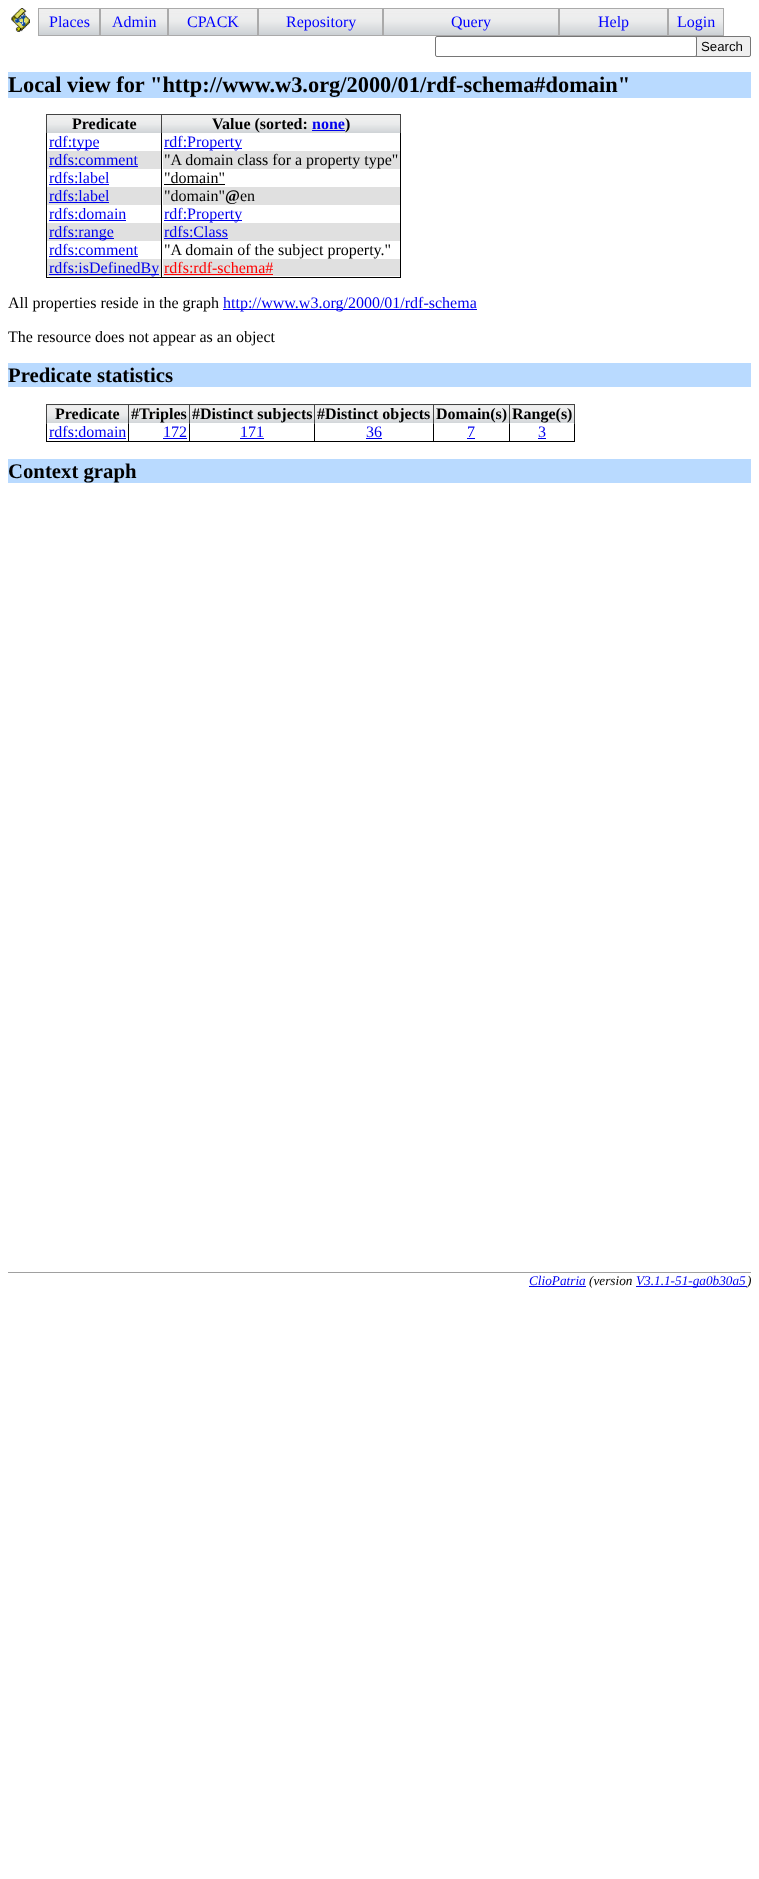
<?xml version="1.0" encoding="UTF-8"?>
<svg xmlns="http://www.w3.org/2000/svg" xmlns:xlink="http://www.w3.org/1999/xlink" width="759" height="1879">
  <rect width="100%" height="100%" fill="#ffffff" />
  <image x="11" y="8" width="19" height="24" xlink:href="image1.png" />
  <image x="39" y="9" width="60" height="26" xlink:href="image2.png" />
  <rect x="38.5" y="8.5" width="61" height="27" fill="none" stroke="#aaaaaa" />
  <image x="101" y="9" width="66" height="26" xlink:href="image3.png" />
  <rect x="100.5" y="8.5" width="67" height="27" fill="none" stroke="#aaaaaa" />
  <image x="169" y="9" width="88" height="26" xlink:href="image4.png" />
  <rect x="168.5" y="8.5" width="89" height="27" fill="none" stroke="#aaaaaa" />
  <image x="259" y="9" width="123" height="26" xlink:href="image5.png" />
  <rect x="258.5" y="8.5" width="124" height="27" fill="none" stroke="#aaaaaa" />
  <image x="384" y="9" width="174" height="26" xlink:href="image6.png" />
  <rect x="383.5" y="8.5" width="175" height="27" fill="none" stroke="#aaaaaa" />
  <image x="560" y="9" width="107" height="26" xlink:href="image7.png" />
  <rect x="559.5" y="8.5" width="108" height="27" fill="none" stroke="#aaaaaa" />
  <image x="669" y="9" width="54" height="26" xlink:href="image8.png" />
  <rect x="668.5" y="8.5" width="55" height="27" fill="none" stroke="#aaaaaa" />
  <rect x="693.5" y="36.5" width="57" height="20" rx="1.5" fill="#efefef" stroke="#767676" />
  <rect x="435.5" y="36.5" width="261" height="20" rx="1.5" fill="#ffffff" stroke="#767676" />
  <rect x="8" y="72" width="743" height="26" fill="#b9daff" />
  <image x="47" y="115" width="114" height="18" xlink:href="image9.png" />
  <rect x="161" y="114" width="240" height="1" fill="#444444" />
  <rect x="400" y="132" width="1" height="146" fill="#000000" />
  <rect x="161" y="277" width="240" height="1" fill="#000000" />
  <rect x="161" y="132" width="1" height="146" fill="#000000" />
  <rect x="161" y="114" width="1" height="19" fill="#444444" />
  <rect x="46" y="114" width="116" height="1" fill="#444444" />
  <rect x="46" y="277" width="116" height="1" fill="#000000" />
  <rect x="46" y="132" width="1" height="146" fill="#000000" />
  <rect x="46" y="114" width="1" height="19" fill="#444444" />
  <image x="162" y="115" width="238" height="18" xlink:href="image10.png" />
  <rect x="400" y="114" width="1" height="19" fill="#444444" />
  <rect x="312" y="130" width="33" height="1" fill="#0000ee" />
  <rect x="49" y="148" width="50" height="1" fill="#0000ee" />
  <rect x="164" y="148" width="78" height="1" fill="#0000ee" />
  <rect x="47" y="151" width="114" height="18" fill="#e0e0e0" />
  <rect x="49" y="166" width="89" height="1" fill="#0000ee" />
  <rect x="163" y="151" width="237" height="18" fill="#e0e0e0" />
  <rect x="49" y="184" width="60" height="1" fill="#0000ee" />
  <rect x="164" y="184" width="61" height="1" fill="#000000" />
  <rect x="47" y="187" width="114" height="18" fill="#e0e0e0" />
  <rect x="49" y="202" width="60" height="1" fill="#0000ee" />
  <rect x="163" y="187" width="237" height="18" fill="#e0e0e0" />
  <rect x="49" y="220" width="77" height="1" fill="#0000ee" />
  <rect x="164" y="220" width="78" height="1" fill="#0000ee" />
  <rect x="47" y="223" width="114" height="18" fill="#e0e0e0" />
  <rect x="49" y="238" width="65" height="1" fill="#0000ee" />
  <rect x="163" y="223" width="237" height="18" fill="#e0e0e0" />
  <rect x="164" y="238" width="64" height="1" fill="#0000ee" />
  <rect x="49" y="256" width="89" height="1" fill="#0000ee" />
  <rect x="47" y="259" width="114" height="17" fill="#e0e0e0" />
  <rect x="49" y="274" width="110" height="1" fill="#0000ee" />
  <rect x="163" y="259" width="237" height="17" fill="#e0e0e0" />
  <rect x="164" y="274" width="109" height="1" fill="#ff0000" />
  <rect x="223" y="309" width="254" height="1" fill="#0000ee" />
  <rect x="8" y="363" width="743" height="24" fill="#b9daff" />
  <image x="47" y="405" width="81" height="18" xlink:href="image11.png" />
  <rect x="509" y="404" width="66" height="1" fill="#444444" />
  <rect x="574" y="423" width="1" height="19" fill="#000000" />
  <rect x="509" y="441" width="66" height="1" fill="#000000" />
  <rect x="509" y="423" width="1" height="19" fill="#000000" />
  <rect x="509" y="404" width="1" height="20" fill="#444444" />
  <rect x="433" y="404" width="77" height="1" fill="#444444" />
  <rect x="433" y="441" width="77" height="1" fill="#000000" />
  <rect x="433" y="423" width="1" height="19" fill="#000000" />
  <rect x="433" y="404" width="1" height="20" fill="#444444" />
  <rect x="314" y="404" width="120" height="1" fill="#444444" />
  <rect x="314" y="441" width="120" height="1" fill="#000000" />
  <rect x="314" y="423" width="1" height="19" fill="#000000" />
  <rect x="314" y="404" width="1" height="20" fill="#444444" />
  <rect x="189" y="404" width="126" height="1" fill="#444444" />
  <rect x="189" y="441" width="126" height="1" fill="#000000" />
  <rect x="189" y="423" width="1" height="19" fill="#000000" />
  <rect x="189" y="404" width="1" height="20" fill="#444444" />
  <rect x="128" y="404" width="62" height="1" fill="#444444" />
  <rect x="128" y="441" width="62" height="1" fill="#000000" />
  <rect x="128" y="423" width="1" height="19" fill="#000000" />
  <rect x="128" y="404" width="1" height="20" fill="#444444" />
  <rect x="46" y="404" width="83" height="1" fill="#444444" />
  <rect x="46" y="441" width="83" height="1" fill="#000000" />
  <rect x="46" y="423" width="1" height="19" fill="#000000" />
  <rect x="46" y="404" width="1" height="20" fill="#444444" />
  <image x="129" y="405" width="60" height="18" xlink:href="image12.png" />
  <image x="190" y="405" width="124" height="18" xlink:href="image13.png" />
  <image x="315" y="405" width="118" height="18" xlink:href="image14.png" />
  <image x="434" y="405" width="75" height="18" xlink:href="image15.png" />
  <image x="510" y="405" width="64" height="18" xlink:href="image16.png" />
  <rect x="574" y="404" width="1" height="20" fill="#444444" />
  <rect x="49" y="438" width="77" height="1" fill="#0000ee" />
  <rect x="163" y="438" width="24" height="1" fill="#0000ee" />
  <rect x="240" y="438" width="24" height="1" fill="#0000ee" />
  <rect x="366" y="438" width="16" height="1" fill="#0000ee" />
  <rect x="467" y="438" width="8" height="1" fill="#0000ee" />
  <rect x="538" y="438" width="8" height="1" fill="#0000ee" />
  <rect x="8" y="459" width="743" height="24" fill="#b9daff" />
  <rect x="8" y="1272" width="743" height="1" fill="#a0a0a0" />
  <rect x="529" y="1286" width="57" height="1" fill="#0000ee" />
  <rect x="636" y="1286" width="111" height="1" fill="#0000ee" />
  <text x="49" y="27" style="font-family: Liberation Serif; font-size: 16px; fill: #0000ff">Places</text>
  <text x="112" y="27" style="font-family: Liberation Serif; font-size: 16px; fill: #0000ff">Admin</text>
  <text x="187" y="27" style="font-family: Liberation Serif; font-size: 16px; fill: #0000ff">CPACK</text>
  <text x="286" y="27" style="font-family: Liberation Serif; font-size: 16px; fill: #0000ff">Repository</text>
  <text x="451" y="27" style="font-family: Liberation Serif; font-size: 16px; fill: #0000ff">Query</text>
  <text x="598" y="27" style="font-family: Liberation Serif; font-size: 16px; fill: #0000ff">Help</text>
  <text x="677" y="27" style="font-family: Liberation Serif; font-size: 16px; fill: #0000ff">Login</text>
  <text x="701" y="51" style="font-family: Liberation Sans; font-size: 13.25px; fill: #000000">Search</text>
  <text x="8" y="92" style="font-family: Liberation Serif; font-size: 22.4px; font-weight: bold; fill: #000000">Local view for "http://www.w3.org/2000/01/rdf-schema#domain"</text>
  <text x="72" y="129" style="font-family: Liberation Serif; font-size: 16px; font-weight: bold; fill: #000000">Predicate</text>
  <text x="212" y="129" style="font-family: Liberation Serif; font-size: 16px; font-weight: bold; fill: #000000">Value (sorted:</text>
  <text x="312" y="129" style="font-family: Liberation Serif; font-size: 16px; font-weight: bold; fill: #0000ee">none</text>
  <text x="345" y="129" style="font-family: Liberation Serif; font-size: 16px; font-weight: bold; fill: #000000">)</text>
  <text x="49" y="147" style="font-family: Liberation Serif; font-size: 16px; fill: #0000ee">rdf:type</text>
  <text x="164" y="147" style="font-family: Liberation Serif; font-size: 16px; fill: #0000ee">rdf:Property</text>
  <text x="49" y="165" style="font-family: Liberation Serif; font-size: 16px; fill: #0000ee">rdfs:comment</text>
  <text x="164" y="165" style="font-family: Liberation Serif; font-size: 16px; fill: #000000">"A domain class for a property type"</text>
  <text x="49" y="183" style="font-family: Liberation Serif; font-size: 16px; fill: #0000ee">rdfs:label</text>
  <text x="164" y="183" style="font-family: Liberation Serif; font-size: 16px; fill: #000000">"domain"</text>
  <text x="49" y="201" style="font-family: Liberation Serif; font-size: 16px; fill: #0000ee">rdfs:label</text>
  <text x="164" y="201" style="font-family: Liberation Serif; font-size: 16px; fill: #000000">"domain"</text>
  <text x="225" y="201" style="font-family: Liberation Serif; font-size: 16px; font-weight: bold; fill: #000000">@</text>
  <text x="240" y="201" style="font-family: Liberation Serif; font-size: 16px; fill: #000000">en</text>
  <text x="49" y="219" style="font-family: Liberation Serif; font-size: 16px; fill: #0000ee">rdfs:domain</text>
  <text x="164" y="219" style="font-family: Liberation Serif; font-size: 16px; fill: #0000ee">rdf:Property</text>
  <text x="49" y="237" style="font-family: Liberation Serif; font-size: 16px; fill: #0000ee">rdfs:range</text>
  <text x="164" y="237" style="font-family: Liberation Serif; font-size: 16px; fill: #0000ee">rdfs:Class</text>
  <text x="49" y="255" style="font-family: Liberation Serif; font-size: 16px; fill: #0000ee">rdfs:comment</text>
  <text x="164" y="255" style="font-family: Liberation Serif; font-size: 16px; fill: #000000">"A domain of the subject property."</text>
  <text x="49" y="273" style="font-family: Liberation Serif; font-size: 16px; fill: #0000ee">rdfs:isDefinedBy</text>
  <text x="164" y="273" style="font-family: Liberation Serif; font-size: 16px; fill: #ff0000">rdfs:rdf-schema#</text>
  <text x="8" y="308" style="font-family: Liberation Serif; font-size: 16px; fill: #000000">All properties reside in the graph</text>
  <text x="223" y="308" style="font-family: Liberation Serif; font-size: 16px; fill: #0000ee">http://www.w3.org/2000/01/rdf-schema</text>
  <text x="8" y="342" style="font-family: Liberation Serif; font-size: 16px; fill: #000000">The resource does not appear as an object</text>
  <text x="8" y="382" style="font-family: Liberation Serif; font-size: 20.75px; font-weight: bold; fill: #000000">Predicate statistics</text>
  <text x="55" y="419" style="font-family: Liberation Serif; font-size: 16px; font-weight: bold; fill: #000000">Predicate</text>
  <text x="131" y="419" style="font-family: Liberation Serif; font-size: 16px; font-weight: bold; fill: #000000">#Triples</text>
  <text x="192" y="419" style="font-family: Liberation Serif; font-size: 16px; font-weight: bold; fill: #000000">#Distinct subjects</text>
  <text x="317" y="419" style="font-family: Liberation Serif; font-size: 16px; font-weight: bold; fill: #000000">#Distinct objects</text>
  <text x="436" y="419" style="font-family: Liberation Serif; font-size: 16px; font-weight: bold; fill: #000000">Domain(s)</text>
  <text x="512" y="419" style="font-family: Liberation Serif; font-size: 16px; font-weight: bold; fill: #000000">Range(s)</text>
  <text x="49" y="437" style="font-family: Liberation Serif; font-size: 16px; fill: #0000ee">rdfs:domain</text>
  <text x="163" y="437" style="font-family: Liberation Serif; font-size: 16px; fill: #0000ee">172</text>
  <text x="240" y="437" style="font-family: Liberation Serif; font-size: 16px; fill: #0000ee">171</text>
  <text x="366" y="437" style="font-family: Liberation Serif; font-size: 16px; fill: #0000ee">36</text>
  <text x="467" y="437" style="font-family: Liberation Serif; font-size: 16px; fill: #0000ee">7</text>
  <text x="538" y="437" style="font-family: Liberation Serif; font-size: 16px; fill: #0000ee">3</text>
  <text x="8" y="478" style="font-family: Liberation Serif; font-size: 20.75px; font-weight: bold; fill: #000000">Context graph</text>
  <text x="529" y="1285" style="font-family: Liberation Serif; font-size: 13.25px; font-style: italic; fill: #0000ee">ClioPatria</text>
  <text x="589" y="1285" style="font-family: Liberation Serif; font-size: 13.25px; font-style: italic; fill: #000000">(version</text>
  <text x="636" y="1285" style="font-family: Liberation Serif; font-size: 13.25px; font-style: italic; fill: #0000ee">V3.1.1-51-ga0b30a5</text>
  <text x="747" y="1285" style="font-family: Liberation Serif; font-size: 13.25px; font-style: italic; fill: #000000">)</text>
</svg>
